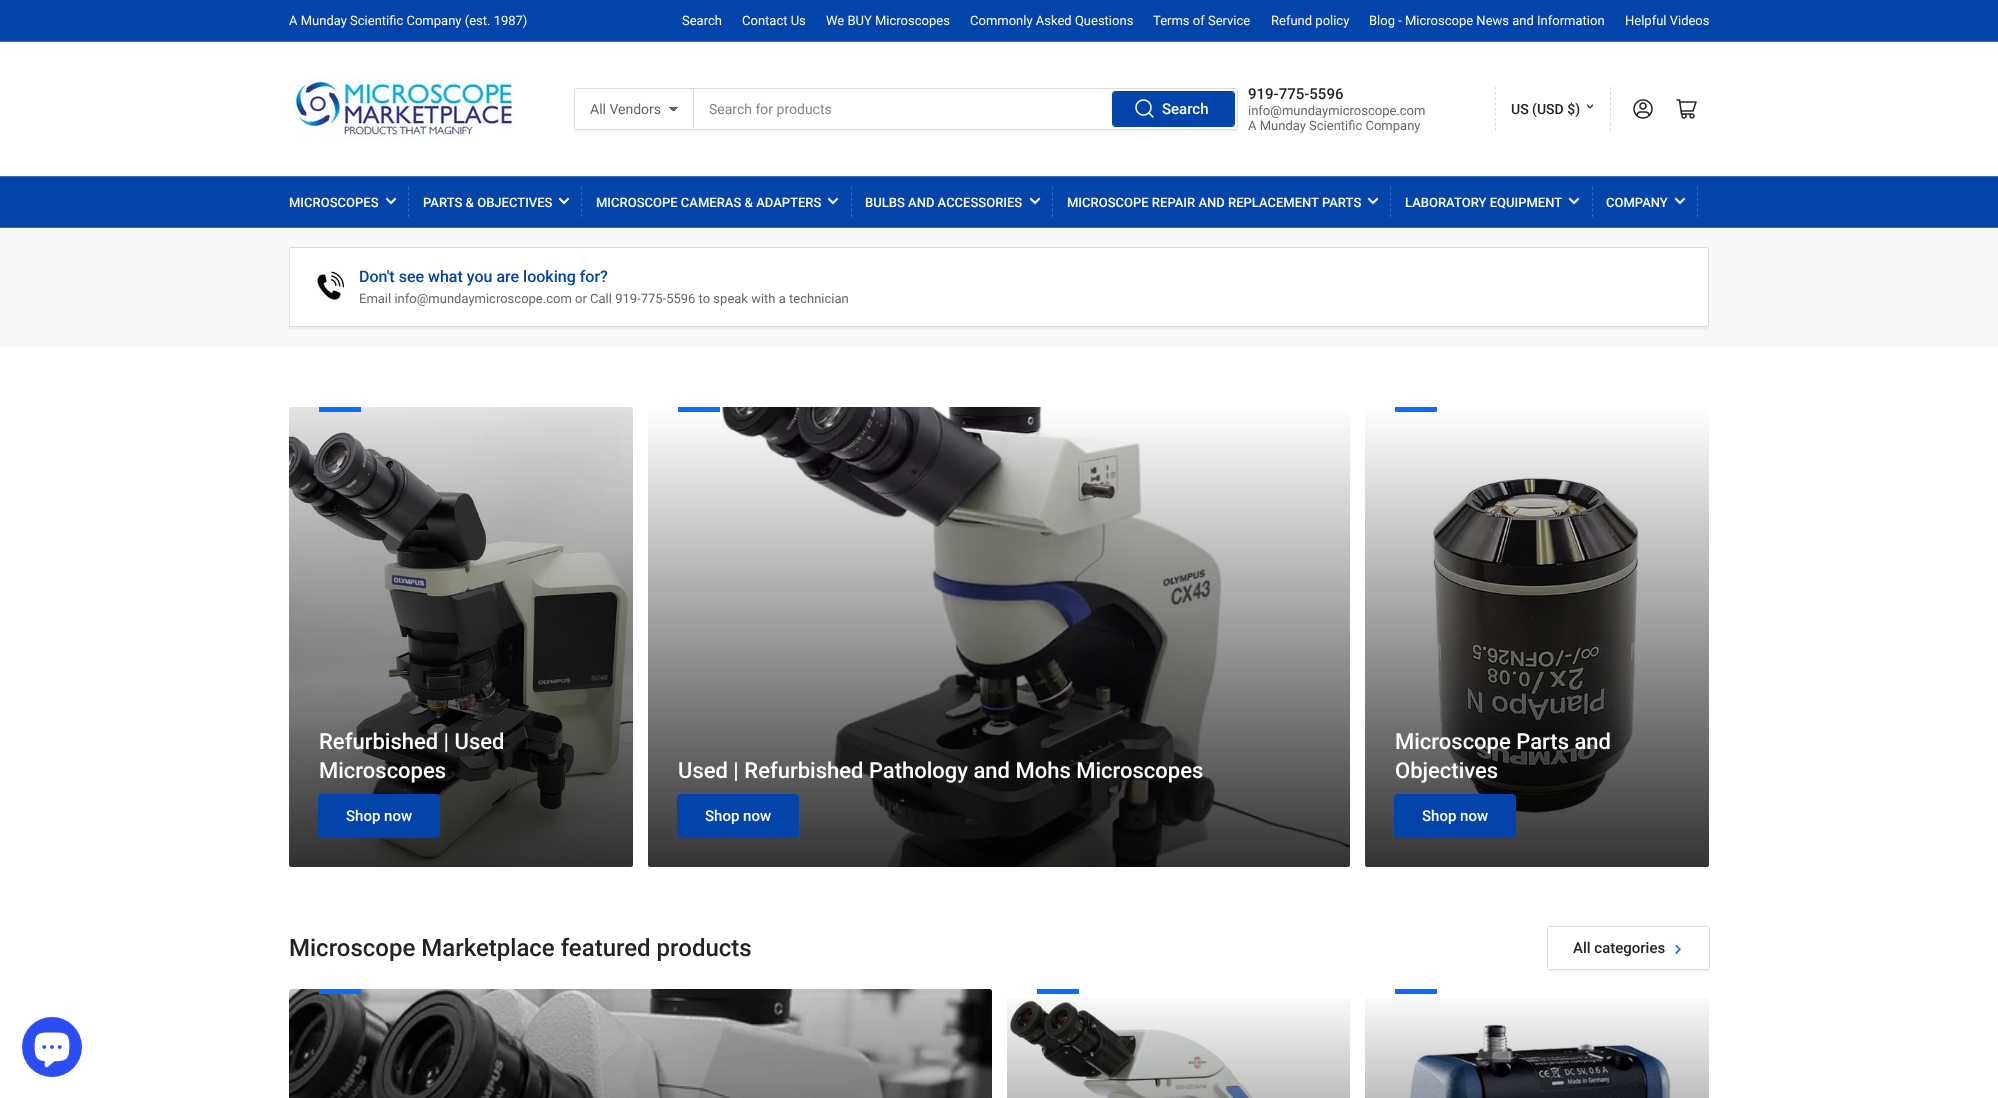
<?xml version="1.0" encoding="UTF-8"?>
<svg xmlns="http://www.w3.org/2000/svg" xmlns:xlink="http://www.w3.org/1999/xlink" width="1998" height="1098">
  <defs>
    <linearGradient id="g1" gradientUnits="userSpaceOnUse" x1="673" y1="107" x2="678" y2="112"><stop offset="0.5" stop-color="#676767" /><stop offset="0.5" stop-color="#ffffff" /></linearGradient>
    <linearGradient id="g2" gradientUnits="userSpaceOnUse" x1="668" y1="112" x2="673" y2="107"><stop offset="0.5" stop-color="#ffffff" /><stop offset="0.5" stop-color="#676767" /></linearGradient>
    <linearGradient id="g3" gradientUnits="userSpaceOnUse" x1="461" y1="407" x2="461" y2="867"><stop offset="0" stop-color="#000000" stop-opacity="0" /><stop offset="1" stop-color="#000000" stop-opacity="0.8" /></linearGradient>
    <linearGradient id="g4" gradientUnits="userSpaceOnUse" x1="999" y1="407" x2="999" y2="867"><stop offset="0" stop-color="#000000" stop-opacity="0" /><stop offset="1" stop-color="#000000" stop-opacity="0.8" /></linearGradient>
    <linearGradient id="g5" gradientUnits="userSpaceOnUse" x1="1537" y1="407" x2="1537" y2="867"><stop offset="0" stop-color="#000000" stop-opacity="0" /><stop offset="1" stop-color="#000000" stop-opacity="0.8" /></linearGradient>
    <linearGradient id="g6" gradientUnits="userSpaceOnUse" x1="641" y1="989" x2="641" y2="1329"><stop offset="0" stop-color="#000000" stop-opacity="0" /><stop offset="1" stop-color="#000000" stop-opacity="0.8" /></linearGradient>
    <linearGradient id="g7" gradientUnits="userSpaceOnUse" x1="1179" y1="989" x2="1179" y2="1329"><stop offset="0" stop-color="#000000" stop-opacity="0" /><stop offset="1" stop-color="#000000" stop-opacity="0.8" /></linearGradient>
    <linearGradient id="g8" gradientUnits="userSpaceOnUse" x1="1537" y1="989" x2="1537" y2="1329"><stop offset="0" stop-color="#000000" stop-opacity="0" /><stop offset="1" stop-color="#000000" stop-opacity="0.8" /></linearGradient>
  </defs>
  <rect width="100%" height="100%" fill="#ffffff" />
  <rect width="1998" height="41" fill="#0244a9" />
  <rect y="41" width="1998" height="1" fill="#3569ba" />
  <image x="289" y="77" width="230" height="64" xlink:href="image1.png" />
  <rect x="574.5" y="88.5" width="119" height="41" rx="1.5" fill="none" stroke="#dadada" />
  <path d="M 574 128 v 2 c 0 1 1 2 2 2 h 118 v -2 h -118 c -1 0 -2 -1 -2 -2 z" fill="#dadada" fill-opacity="0.3" />
  <path d="M 576 88 h 118 v 42 h -118 c -1 0 -2 -1 -2 -2 v -38 c 0 -1 1 -2 2 -2 z" fill="#ffffff" />
  <rect x="673" y="107" width="5" height="4" fill="url(#g1)" />
  <rect x="668" y="107" width="5" height="4" fill="url(#g2)" />
  <path d="M 576 88.5 h 117.5 v 41 h -117.5 c -1 0 -1.5 -0.5 -1.5 -1.5 v -38 c 0 -1 0.5 -1.5 1.5 -1.5 z" fill="none" stroke="#dadada" />
  <path d="M 694 130 v 2 h 542 l 2 -1 v -3 c 0 1 -1 2 -2 2 z" fill="#f4f4f4" />
  <rect x="694" y="88" width="543" height="1" fill="#dadada" />
  <rect x="1237" y="89" width="1" height="40" fill="#dadada" />
  <rect x="694" y="129" width="543" height="1" fill="#dadada" />
  <rect x="1112.5" y="91.5" width="122" height="35" rx="2.5" fill="none" stroke="#0244a9" />
  <rect x="1113" y="92" width="121" height="34" rx="2" fill="#0244a9" />
  <image x="1135" y="99" width="19" height="19" xlink:href="image2.png" />
  <path d="M 1610.5 87 v 44" fill="none" stroke="#dadada" stroke-dasharray="3 2.12" />
  <path d="M 1495.5 87 v 44" fill="none" stroke="#dadada" stroke-dasharray="3 2.12" />
  <path d="M 1587.5 104.5 l 3 3 v 0.5 c -0.5 1.5 -4.5 -3 -3.5 -3.5 z" fill="#232323" />
  <path d="M 1589.5 107.5 l 3 -3 h 0.5 c 1.5 0.5 -3 4.5 -3.5 3.5 z" fill="#232323" />
  <image x="1633" y="99" width="20" height="20" xlink:href="image3.png" />
  <image x="1676" y="99" width="21" height="20" xlink:href="image4.png" />
  <rect y="177" width="1998" height="50" fill="#0244a9" />
  <rect y="176" width="1998" height="1" fill="#3569ba" />
  <rect y="227" width="1998" height="1" fill="#3569ba" />
  <path d="M 395 199 l -4 4 l -4 -4" fill="none" stroke="#ffffff" stroke-width="2" stroke-linecap="square" />
  <path d="M 408.5 187 v 30" fill="none" stroke="#3569ba" stroke-dasharray="3 2.4" />
  <path d="M 568 199 l -4 4 l -4 -4" fill="none" stroke="#ffffff" stroke-width="2" stroke-linecap="square" />
  <path d="M 581.5 187 v 30" fill="none" stroke="#3569ba" stroke-dasharray="3 2.4" />
  <path d="M 837 199 l -4 4 l -4 -4" fill="none" stroke="#ffffff" stroke-width="2" stroke-linecap="square" />
  <path d="M 851.5 187 v 30" fill="none" stroke="#3569ba" stroke-dasharray="3 2.4" />
  <path d="M 1039 199 l -4 4 l -4 -4" fill="none" stroke="#ffffff" stroke-width="2" stroke-linecap="square" />
  <path d="M 1052.5 187 v 30" fill="none" stroke="#3569ba" stroke-dasharray="3 2.4" />
  <path d="M 1377 199 l -4 4 l -4 -4" fill="none" stroke="#ffffff" stroke-width="2" stroke-linecap="square" />
  <path d="M 1390.5 187 v 30" fill="none" stroke="#3569ba" stroke-dasharray="3 2.4" />
  <path d="M 1578 199 l -4 4 l -4 -4" fill="none" stroke="#ffffff" stroke-width="2" stroke-linecap="square" />
  <path d="M 1592.5 187 v 30" fill="none" stroke="#3569ba" stroke-dasharray="3 2.4" />
  <path d="M 1684 199 l -4 4 l -4 -4" fill="none" stroke="#ffffff" stroke-width="2" stroke-linecap="square" />
  <path d="M 1697.5 187 v 30" fill="none" stroke="#3569ba" stroke-dasharray="3 2.4" />
  <rect y="228" width="1998" height="119" fill="#f8f8f8" />
  <path d="M 289 325 v 4 l 1 1 h 1417 l 1 -1 c 1 -1 1 -3 1 -4 c 0 1 -1 2 -2 2 h -1416 c -1 0 -2 -1 -2 -2 z" fill="#efefef" />
  <rect x="289.5" y="247.5" width="1419" height="79" rx="1.5" fill="#ffffff" stroke="#dadada" />
  <image x="317" y="271" width="28" height="31" xlink:href="image5.png" />
  <image x="289" y="407" width="344" height="460" xlink:href="image6.png" />
  <rect x="289" y="407" width="344" height="460" rx="2" fill="url(#g3)" />
  <rect x="319" y="407" width="42" height="5" fill="#0b6cff" />
  <rect x="318.5" y="794.5" width="121" height="43" rx="2.5" fill="none" stroke="#0244a9" />
  <rect x="319" y="795" width="120" height="42" rx="2" fill="#0244a9" />
  <image x="722" y="407" width="628" height="460" xlink:href="image7.png" />
  <rect x="648" y="407" width="702" height="460" rx="2" fill="url(#g4)" />
  <rect x="678" y="407" width="42" height="5" fill="#0b6cff" />
  <rect x="677.5" y="794.5" width="121" height="43" rx="2.5" fill="none" stroke="#0244a9" />
  <rect x="678" y="795" width="120" height="42" rx="2" fill="#0244a9" />
  <image x="1432" y="476" width="207" height="339" xlink:href="image8.png" />
  <rect x="1365" y="407" width="344" height="460" rx="2" fill="url(#g5)" />
  <rect x="1395" y="407" width="42" height="5" fill="#0b6cff" />
  <rect x="1394.5" y="794.5" width="121" height="43" rx="2.5" fill="none" stroke="#0244a9" />
  <rect x="1395" y="795" width="120" height="42" rx="2" fill="#0244a9" />
  <path d="M 1548 967 v 3 c 0 1 1 2 2 2 h 157 c 1 0 2 -1 2 -2 v -3 c 0 1 -1 2 -2 2 h -157 c -1 0 -2 -1 -2 -2 z" fill="#f4f4f4" />
  <rect x="1547.5" y="926.5" width="162" height="43" rx="2.5" fill="none" stroke="#dadada" />
  <rect x="1548" y="927" width="161" height="42" rx="2" fill="#ffffff" />
  <path d="M 1675.5 952.5 l 2 -2 c 0.5 -0.5 1.5 -2 2.5 -2 c 2 0.5 -2 3.5 -2 4 l -1.5 1.5 c -1 0 -1.5 -1 -1 -1.5 z" fill="#0b6cff" />
  <path d="M 1679.5 950 l -2 -2 c -0.5 -0.5 -2.5 -1.5 -2 -2.5 c 0.5 -2 3.5 2 3.5 2 l 1.5 1.5 c 0.5 1 -0.5 1.5 -1 1 z" fill="#0b6cff" />
  <image x="289" y="989" width="703" height="109" xlink:href="image9.png" />
  <rect x="319" y="989" width="42" height="5" fill="#0b6cff" />
  <rect x="289" y="998" width="703" height="100" fill="url(#g6)" />
  <rect x="1037" y="989" width="42" height="5" fill="#0b6cff" />
  <image x="1009" y="999" width="244" height="99" xlink:href="image10.png" />
  <rect x="1007" y="998" width="343" height="100" fill="url(#g7)" />
  <rect x="1395" y="989" width="42" height="5" fill="#0b6cff" />
  <image x="1406" y="1022" width="268" height="76" xlink:href="image11.png" />
  <rect x="1365" y="998" width="344" height="100" fill="url(#g8)" />
  <circle cx="52" cy="1047" r="30" fill="#2c4df3" />
  <image x="34" y="1032" width="36" height="36" xlink:href="image12.png" />
  <text x="289" y="25" style="font-family: Roboto; font-size: 13px; fill: #ffffff">A Munday Scientific Company (est. 1987)</text>
  <text x="682" y="25" style="font-family: Roboto; font-size: 13px; fill: #ffffff">Search</text>
  <text x="742" y="25" style="font-family: Roboto; font-size: 13px; fill: #ffffff">Contact Us</text>
  <text x="826" y="25" style="font-family: Roboto; font-size: 13px; fill: #ffffff">We BUY Microscopes</text>
  <text x="970" y="25" style="font-family: Roboto; font-size: 13px; fill: #ffffff">Commonly Asked Questions</text>
  <text x="1153" y="25" style="font-family: Roboto; font-size: 13px; fill: #ffffff">Terms of Service</text>
  <text x="1271" y="25" style="font-family: Roboto; font-size: 13px; fill: #ffffff">Refund policy</text>
  <text x="1369" y="25" style="font-family: Roboto; font-size: 13px; fill: #ffffff">Blog - Microscope News and Information</text>
  <text x="1625" y="25" style="font-family: Roboto; font-size: 13px; fill: #ffffff">Helpful Videos</text>
  <text x="590" y="114" style="font-family: Roboto; font-size: 14px; fill: #676767">All Vendors</text>
  <text x="709" y="114" style="font-family: Roboto; font-size: 14px; fill: #858585">Search for products</text>
  <text x="1162" y="114" style="font-family: Roboto; font-size: 15px; font-weight: 500; fill: #ffffff">Search</text>
  <text x="1248" y="99" style="font-family: Roboto; font-size: 15px; font-weight: 500; fill: #232323">919-775-5596</text>
  <text x="1248" y="115" style="font-family: Roboto; font-size: 13px; fill: #676767">info@mundaymicroscope.com</text>
  <text x="1248" y="130" style="font-family: Roboto; font-size: 13px; fill: #676767">A Munday Scientific Company</text>
  <text x="1511" y="114" style="font-family: Roboto; font-size: 14px; font-weight: 500; fill: #232323">US (USD $)</text>
  <text x="289" y="207" style="font-family: Roboto; font-size: 13px; font-weight: 500; fill: #ffffff">MICROSCOPES</text>
  <text x="423" y="207" style="font-family: Roboto; font-size: 13px; font-weight: 500; fill: #ffffff">PARTS &amp; OBJECTIVES</text>
  <text x="596" y="207" style="font-family: Roboto; font-size: 13px; font-weight: 500; fill: #ffffff">MICROSCOPE CAMERAS &amp; ADAPTERS</text>
  <text x="865" y="207" style="font-family: Roboto; font-size: 13px; font-weight: 500; fill: #ffffff">BULBS AND ACCESSORIES</text>
  <text x="1067" y="207" style="font-family: Roboto; font-size: 13px; font-weight: 500; fill: #ffffff">MICROSCOPE REPAIR AND REPLACEMENT PARTS</text>
  <text x="1405" y="207" style="font-family: Roboto; font-size: 13px; font-weight: 500; fill: #ffffff">LABORATORY EQUIPMENT</text>
  <text x="1606" y="207" style="font-family: Roboto; font-size: 13px; font-weight: 500; fill: #ffffff">COMPANY</text>
  <text x="359" y="282" style="font-family: Roboto; font-size: 16px; font-weight: 500; fill: #0244a9">Don't see what you are looking for?</text>
  <text x="359" y="303" style="font-family: Roboto; font-size: 13px; fill: #676767">Email info@mundaymicroscope.com or Call 919-775-5596 to speak with a technician</text>
  <text x="319" y="749" style="font-family: Roboto; font-size: 22px; font-weight: 500; fill: #ffffff">Refurbished | Used</text>
  <text x="319" y="778" style="font-family: Roboto; font-size: 22px; font-weight: 500; fill: #ffffff">Microscopes</text>
  <text x="346" y="821" style="font-family: Roboto; font-size: 15px; font-weight: 500; fill: #ffffff">Shop now</text>
  <text x="678" y="778" style="font-family: Roboto; font-size: 22px; font-weight: 500; fill: #ffffff">Used | Refurbished Pathology and Mohs Microscopes</text>
  <text x="705" y="821" style="font-family: Roboto; font-size: 15px; font-weight: 500; fill: #ffffff">Shop now</text>
  <text x="1395" y="749" style="font-family: Roboto; font-size: 22px; font-weight: 500; fill: #ffffff">Microscope Parts and</text>
  <text x="1395" y="778" style="font-family: Roboto; font-size: 22px; font-weight: 500; fill: #ffffff">Objectives</text>
  <text x="1422" y="821" style="font-family: Roboto; font-size: 15px; font-weight: 500; fill: #ffffff">Shop now</text>
  <text x="289" y="956" style="font-family: Roboto; font-size: 24px; font-weight: 500; fill: #232323">Microscope Marketplace featured products</text>
  <text x="1573" y="953" style="font-family: Roboto; font-size: 15px; font-weight: 500; fill: #232323">All categories</text>
</svg>
